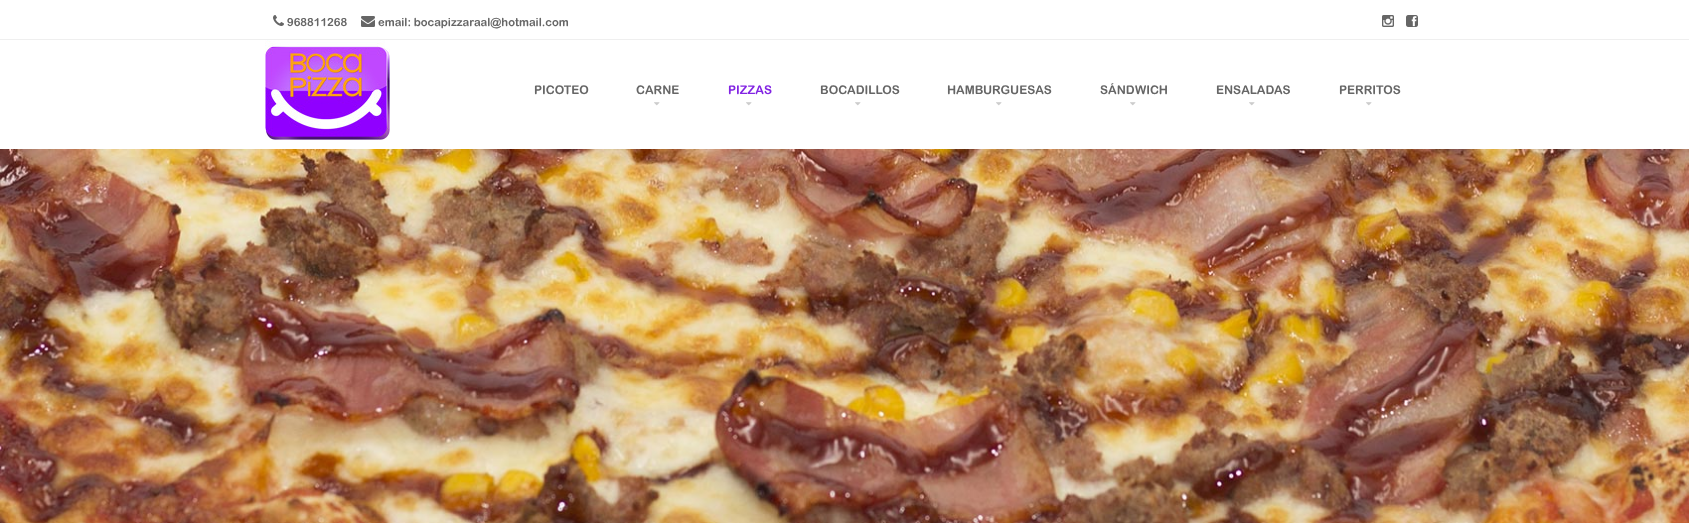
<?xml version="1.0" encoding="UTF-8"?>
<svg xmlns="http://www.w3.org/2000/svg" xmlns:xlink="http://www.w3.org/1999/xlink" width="1689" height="523">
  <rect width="100%" height="100%" fill="#ffffff" />
  <rect y="39" width="1689" height="1" fill="#efefef" />
  <image x="273" y="15" width="11" height="11" xlink:href="image1.png" />
  <image x="361" y="16" width="14" height="11" xlink:href="image2.png" />
  <image x="1382" y="15" width="12" height="12" xlink:href="image3.png" />
  <image x="1406" y="15" width="12" height="12" xlink:href="image4.png" />
  <image x="265" y="40" width="125" height="100" xlink:href="image5.png" />
  <image x="654" y="102" width="6" height="4" xlink:href="image6.png" />
  <image x="746" y="102" width="6" height="4" xlink:href="image6.png" />
  <image x="855" y="102" width="6" height="4" xlink:href="image6.png" />
  <image x="996" y="102" width="6" height="4" xlink:href="image6.png" />
  <image x="1130" y="102" width="6" height="4" xlink:href="image6.png" />
  <image x="1249" y="102" width="6" height="4" xlink:href="image6.png" />
  <image x="1366" y="102" width="6" height="4" xlink:href="image6.png" />
  <image x="0" y="149" width="1689" height="374" xlink:href="image7.png" />
  <text x="287" y="26" style="font-family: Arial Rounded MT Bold; font-size: 11.25px; font-weight: bold; fill: #666666">968811268</text>
  <text x="378" y="26" style="font-family: Arial Rounded MT Bold; font-size: 11.25px; font-weight: bold; fill: #666666">email: bocapizzaraal@hotmail.com</text>
  <text x="534" y="94" style="font-family: Arial Rounded MT Bold; font-size: 12px; font-weight: bold; fill: #666666">PICOTEO</text>
  <text x="636" y="94" style="font-family: Arial Rounded MT Bold; font-size: 12px; font-weight: bold; fill: #666666">CARNE</text>
  <text x="728" y="94" style="font-family: Arial Rounded MT Bold; font-size: 12px; font-weight: bold; fill: #8224e3">PIZZAS</text>
  <text x="820" y="94" style="font-family: Arial Rounded MT Bold; font-size: 12px; font-weight: bold; fill: #666666">BOCADILLOS</text>
  <text x="947" y="94" style="font-family: Arial Rounded MT Bold; font-size: 12px; font-weight: bold; fill: #666666">HAMBURGUESAS</text>
  <text x="1100" y="94" style="font-family: Arial Rounded MT Bold; font-size: 12px; font-weight: bold; fill: #666666">SÁNDWICH</text>
  <text x="1216" y="94" style="font-family: Arial Rounded MT Bold; font-size: 12px; font-weight: bold; fill: #666666">ENSALADAS</text>
  <text x="1339" y="94" style="font-family: Arial Rounded MT Bold; font-size: 12px; font-weight: bold; fill: #666666">PERRITOS</text>
</svg>
